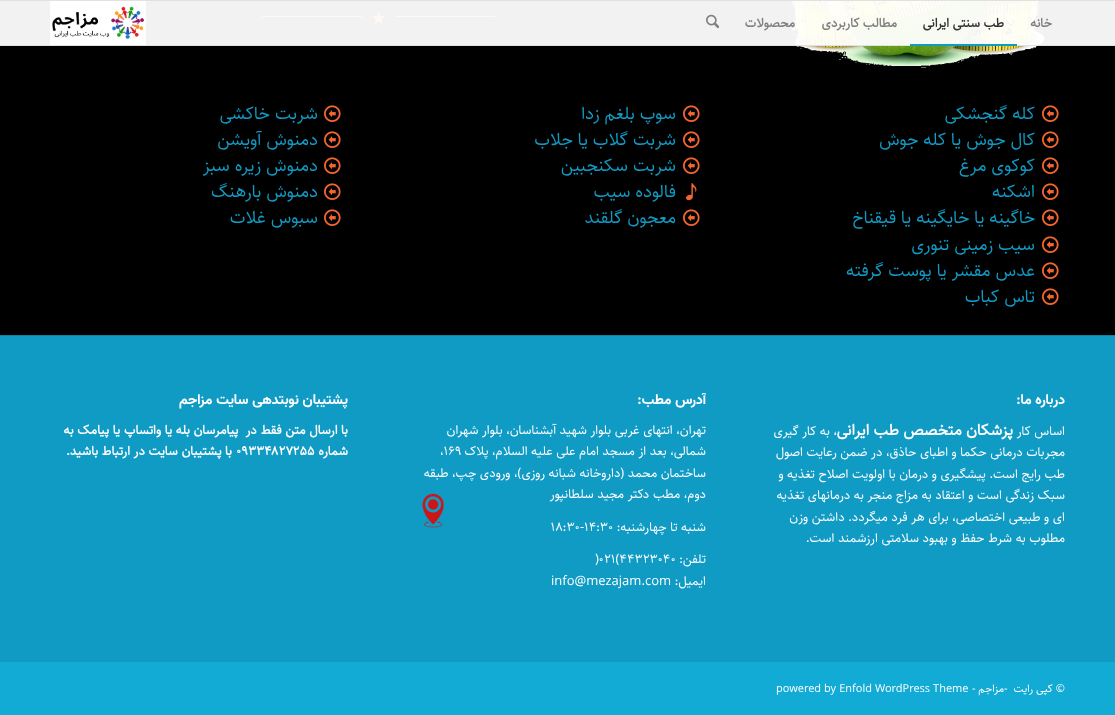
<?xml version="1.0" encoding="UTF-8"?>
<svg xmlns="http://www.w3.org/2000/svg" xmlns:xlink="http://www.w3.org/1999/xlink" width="1115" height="715">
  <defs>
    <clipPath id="clip1"><rect x="409" y="381" width="297" height="222" /></clipPath>
  </defs>
  <rect width="100%" height="100%" fill="#000000" />
  <image x="791" y="1" width="253" height="67" xlink:href="image3.png" />
  <rect x="395" y="16" width="100" height="1" fill="#07ff0f" />
  <image x="372" y="11" width="13" height="14" xlink:href="image4.png" />
  <rect x="262" y="16" width="100" height="1" fill="#07ff0f" />
  <rect y="1" width="1115" height="44" fill="#ffffff" fill-opacity="0.95" />
  <rect width="1115" height="1" fill="#e1e1e1" />
  <rect y="45" width="1115" height="1" fill="#e1e1e1" />
  <rect x="910" y="44" width="107" height="2" fill="#109bc5" />
  <image x="706" y="14" width="13" height="15" xlink:href="image1.png" />
  <image x="50" y="1" width="96" height="44" xlink:href="image2.png" />
  <image x="1042" y="105" width="17" height="17" xlink:href="image5.png" />
  <image x="1042" y="131" width="17" height="17" xlink:href="image5.png" />
  <image x="1042" y="157" width="17" height="17" xlink:href="image5.png" />
  <image x="1042" y="183" width="17" height="17" xlink:href="image5.png" />
  <image x="1042" y="209" width="17" height="17" xlink:href="image5.png" />
  <image x="1042" y="236" width="17" height="17" xlink:href="image5.png" />
  <image x="1042" y="262" width="17" height="17" xlink:href="image5.png" />
  <image x="1042" y="288" width="17" height="17" xlink:href="image5.png" />
  <image x="683" y="105" width="17" height="17" xlink:href="image5.png" />
  <image x="683" y="131" width="17" height="17" xlink:href="image5.png" />
  <image x="683" y="157" width="17" height="17" xlink:href="image5.png" />
  <image x="686" y="183" width="11" height="18" xlink:href="image6.png" />
  <image x="683" y="209" width="17" height="17" xlink:href="image5.png" />
  <image x="324" y="105" width="17" height="17" xlink:href="image5.png" />
  <image x="324" y="131" width="17" height="17" xlink:href="image5.png" />
  <image x="324" y="157" width="17" height="17" xlink:href="image5.png" />
  <image x="324" y="183" width="17" height="17" xlink:href="image5.png" />
  <image x="324" y="209" width="17" height="17" xlink:href="image5.png" />
  <rect y="336" width="1115" height="326" fill="#109bc5" />
  <rect y="335" width="1115" height="1" fill="#0f81a1" />
  <image x="422" y="493" width="22" height="35" xlink:href="image7.png" />
  <rect y="662" width="1115" height="53" fill="#11abd6" />
  <text x="1052" y="27" style="font-family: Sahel; font-size: 13px; font-weight: bold; direction: rtl; fill: #808080">خانه</text>
  <text x="1004" y="27" style="font-family: Sahel; font-size: 13px; font-weight: bold; direction: rtl; fill: #333333">طب سنتی ایرانی</text>
  <text x="897" y="27" style="font-family: Sahel; font-size: 13px; font-weight: bold; direction: rtl; fill: #808080">مطالب کاربردی</text>
  <text x="795" y="27" style="font-family: Sahel; font-size: 13px; font-weight: bold; direction: rtl; fill: #808080">محصولات</text>
  <text x="1035" y="119" style="font-family: Sahel; font-size: 18px; direction: rtl; fill: #109bc5">کله گنجشکی</text>
  <text x="1035" y="145" style="font-family: Sahel; font-size: 18px; direction: rtl; fill: #109bc5">کال جوش یا کله جوش</text>
  <text x="1035" y="171" style="font-family: Sahel; font-size: 18px; direction: rtl; fill: #109bc5">کوکوی مرغ</text>
  <text x="1035" y="197" style="font-family: Sahel; font-size: 18px; direction: rtl; fill: #109bc5">اشکنه</text>
  <text x="1035" y="223" style="font-family: Sahel; font-size: 18px; direction: rtl; fill: #109bc5">خاگینه یا خایگینه یا قیقناخ</text>
  <text x="1035" y="250" style="font-family: Sahel; font-size: 18px; direction: rtl; fill: #109bc5">سیب زمینی تنوری</text>
  <text x="1035" y="276" style="font-family: Sahel; font-size: 18px; direction: rtl; fill: #109bc5">عدس مقشر یا پوست گرفته</text>
  <text x="1035" y="302" style="font-family: Sahel; font-size: 18px; direction: rtl; fill: #109bc5">تاس کباب</text>
  <text x="676" y="119" style="font-family: Sahel; font-size: 18px; direction: rtl; fill: #109bc5">سوپ بلغم زدا</text>
  <text x="676" y="145" style="font-family: Sahel; font-size: 18px; direction: rtl; fill: #109bc5">شربت گلاب یا جلاب</text>
  <text x="676" y="171" style="font-family: Sahel; font-size: 18px; direction: rtl; fill: #109bc5">شربت سكنجبين</text>
  <text x="676" y="197" style="font-family: Sahel; font-size: 18px; direction: rtl; fill: #109bc5">فالوده سیب</text>
  <text x="676" y="223" style="font-family: Sahel; font-size: 18px; direction: rtl; fill: #109bc5">معجون گلقند</text>
  <text x="318" y="119" style="font-family: Sahel; font-size: 18px; direction: rtl; fill: #109bc5">شربت خاکشی</text>
  <text x="318" y="145" style="font-family: Sahel; font-size: 18px; direction: rtl; fill: #109bc5">دمنوش آویشن</text>
  <text x="318" y="171" style="font-family: Sahel; font-size: 18px; direction: rtl; fill: #109bc5">دمنوش زیره سبز</text>
  <text x="318" y="197" style="font-family: Sahel; font-size: 18px; direction: rtl; fill: #109bc5">دمنوش بارهنگ</text>
  <text x="318" y="223" style="font-family: Sahel; font-size: 18px; direction: rtl; fill: #109bc5">سبوس غلات</text>
  <text x="1065" y="404" style="font-family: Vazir; font-size: 14.25px; font-weight: bold; direction: rtl; fill: #ffffff">درباره ما:</text>
  <text x="1065" y="435" style="font-family: Sahel; font-size: 13px; direction: rtl; fill: #ffffff">اساس کار</text>
  <text x="1013" y="435" style="font-family: Sahel; font-size: 16px; font-weight: bold; direction: rtl; fill: #ffffff">پزشکان متخصص طب ایرانی</text>
  <text x="837" y="435" style="font-family: Sahel; font-size: 13px; direction: rtl; fill: #ffffff">، به کار گیری</text>
  <text x="1065" y="456" style="font-family: Sahel; font-size: 13px; direction: rtl; fill: #ffffff">مجربات درمانی حکما و اطبای حاذق، در ضمن رعایت اصول</text>
  <text x="1065" y="478" style="font-family: Sahel; font-size: 13px; direction: rtl; fill: #ffffff">طب رایج است. پیشگیری و درمان با اولویت اصلاح تغذیه و</text>
  <text x="1065" y="499" style="font-family: Sahel; font-size: 13px; direction: rtl; fill: #ffffff">سبک زندگی است و اعتقاد به مزاج منجر به درمانهای تغذیه</text>
  <text x="1065" y="521" style="font-family: Sahel; font-size: 13px; direction: rtl; fill: #ffffff">ای و طبیعی اختصاصی، برای هر فرد میگردد. داشتن وزن</text>
  <text x="1065" y="542" style="font-family: Sahel; font-size: 13px; direction: rtl; fill: #ffffff">مطلوب به شرط حفظ و بهبود سلامتی ارزشمند است.</text>
  <g clip-path="url(#clip1)">
    <text x="706" y="404" style="font-family: Vazir; font-size: 14.25px; font-weight: bold; direction: rtl; fill: #ffffff">آدرس مطب:</text>
  </g>
  <text x="706" y="434" style="font-family: Sahel; font-size: 13px; direction: rtl; fill: #ffffff">تهران، انتهای غربی بلوار شهید آبشناسان، بلوار شهران</text>
  <text x="706" y="455" style="font-family: Sahel; font-size: 13px; direction: rtl; fill: #ffffff">شمالی، بعد از مسجد امام علی علیه السلام، پلاک</text>
  <text x="440" y="455" style="font-family: Sahel; font-size: 13px; fill: #ffffff">،۱۶۹</text>
  <text x="706" y="477" style="font-family: Sahel; font-size: 13px; direction: rtl; fill: #ffffff">ساختمان محمد (داروخانه شبانه روزی)، ورودی چپ، طبقه</text>
  <text x="706" y="498" style="font-family: Sahel; font-size: 13px; direction: rtl; fill: #ffffff">دوم، مطب دکتر مجید سلطانپور</text>
  <text x="706" y="531" style="font-family: Sahel; font-size: 13px; direction: rtl; fill: #ffffff">شنبه تا چهارشنبه:</text>
  <text x="551" y="531" style="font-family: Sahel; font-size: 13px; fill: #ffffff">۱۸:۳۰-۱۴:۳۰</text>
  <text x="706" y="563" style="font-family: Sahel; font-size: 13px; direction: rtl; fill: #ffffff">تلفن:</text>
  <text x="595" y="563" style="font-family: Sahel; font-size: 13px; fill: #ffffff">)۰۲۱(۴۴۳۲۳۰۴۰</text>
  <text x="706" y="585" style="font-family: Sahel; font-size: 13px; direction: rtl; fill: #ffffff">ایمیل:</text>
  <text x="551" y="585" style="font-family: Sahel; font-size: 13px; fill: #ffffff">info@mezajam.com</text>
  <text x="348" y="404" style="font-family: Vazir; font-size: 14.25px; font-weight: bold; direction: rtl; fill: #ffffff">پشتیبان نوبتدهی سایت مزاجم</text>
  <text x="348" y="434" style="font-family: Sahel; font-size: 13px; font-weight: bold; direction: rtl; fill: #ffffff" xml:space="preserve">با ارسال متن فقط در  پیامرسان بله</text>
  <text x="172" y="434" style="font-family: Sahel; font-size: 13px; font-weight: bold; direction: rtl; fill: #ffffff">یا واتساپ</text>
  <text x="120" y="434" style="font-family: Sahel; font-size: 13px; font-weight: bold; direction: rtl; fill: #ffffff">یا پیامک به</text>
  <text x="348" y="455" style="font-family: Sahel; font-size: 13px; font-weight: bold; direction: rtl; fill: #ffffff">شماره</text>
  <text x="236" y="455" style="font-family: Sahel; font-size: 13px; font-weight: bold; fill: #ffffff">۰۹۳۳۴۸۲۷۲۵۵</text>
  <text x="232" y="455" style="font-family: Sahel; font-size: 13px; font-weight: bold; direction: rtl; fill: #ffffff">با پشتیبان سایت در ارتباط باشید.</text>
  <text x="1065" y="692" style="font-family: Sahel; font-size: 11px; direction: rtl; fill: #ffffff">© کپی رایت</text>
  <text x="1004" y="692" style="font-family: Sahel; font-size: 11px; fill: #ffffff">-</text>
  <text x="1004" y="692" style="font-family: Sahel; font-size: 11px; direction: rtl; fill: #ffffff">مزاجم</text>
  <text x="972" y="692" style="font-family: Sahel; font-size: 11px; fill: #ffffff">-</text>
  <text x="776" y="692" style="font-family: Sahel; font-size: 11px; fill: #ffffff">powered by Enfold WordPress Theme</text>
</svg>
